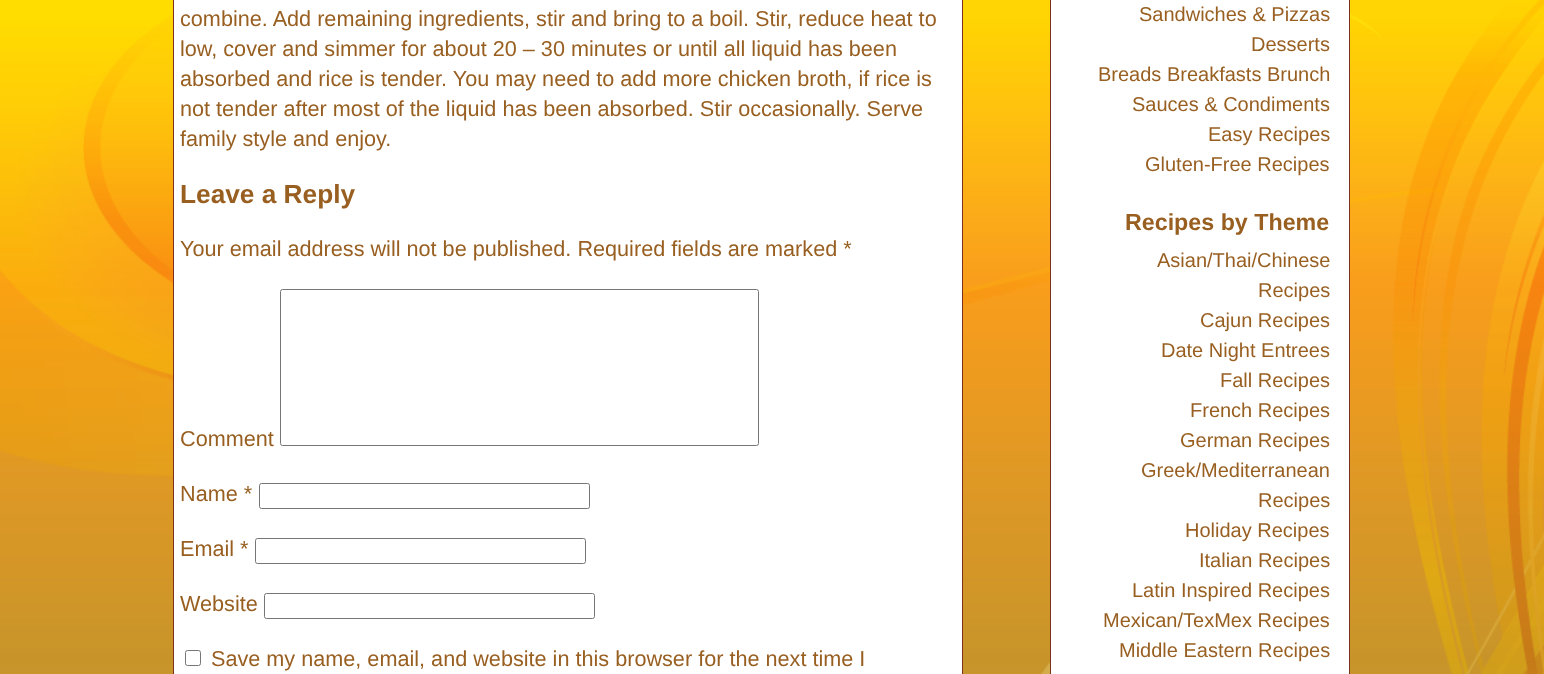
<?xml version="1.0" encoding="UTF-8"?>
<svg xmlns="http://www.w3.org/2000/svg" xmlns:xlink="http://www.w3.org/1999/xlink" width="1544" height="674">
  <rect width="100%" height="100%" fill="#ffffff" />
  <image x="0" y="0" width="1544" height="674" xlink:href="image1.png" />
  <rect x="173.5" y="-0.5" width="789" height="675" fill="#ffffff" stroke="#7c311e" />
  <rect x="280.5" y="289.5" width="478" height="156" rx="2" fill="none" stroke="#767676" />
  <rect x="259.5" y="483.5" width="330" height="25" rx="2" fill="none" stroke="#767676" />
  <rect x="255.5" y="538.5" width="330" height="25" rx="2" fill="none" stroke="#767676" />
  <rect x="264.5" y="593.5" width="330" height="25" rx="2" fill="none" stroke="#767676" />
  <rect x="185.5" y="650.5" width="15" height="15" rx="2" fill="none" stroke="#767676" />
  <rect x="1050.5" y="-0.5" width="299" height="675" fill="#ffffff" stroke="#7c311e" />
  <text x="180" y="26" style="font-family: Liberation Sans; font-size: 21.65px; fill: #985f21">combine. Add remaining ingredients, stir and bring to a boil. Stir, reduce heat to</text>
  <text x="180" y="56" style="font-family: Liberation Sans; font-size: 21.65px; fill: #985f21">low, cover and simmer for about 20 – 30 minutes or until all liquid has been</text>
  <text x="180" y="86" style="font-family: Liberation Sans; font-size: 21.65px; fill: #985f21">absorbed and rice is tender. You may need to add more chicken broth, if rice is</text>
  <text x="180" y="116" style="font-family: Liberation Sans; font-size: 21.65px; fill: #985f21">not tender after most of the liquid has been absorbed. Stir occasionally. Serve</text>
  <text x="180" y="146" style="font-family: Liberation Sans; font-size: 21.65px; fill: #985f21">family style and enjoy.</text>
  <text x="180" y="203" style="font-family: Liberation Sans; font-size: 26.25px; font-weight: bold; fill: #985f21">Leave a Reply</text>
  <text x="180" y="256" style="font-family: Liberation Sans; font-size: 21.65px; fill: #985f21">Your email address will not be published. Required fields are marked *</text>
  <text x="180" y="446" style="font-family: Liberation Sans; font-size: 21.65px; fill: #985f21">Comment</text>
  <text x="180" y="501" style="font-family: Liberation Sans; font-size: 21.65px; fill: #985f21">Name *</text>
  <text x="180" y="556" style="font-family: Liberation Sans; font-size: 21.65px; fill: #985f21">Email *</text>
  <text x="180" y="611" style="font-family: Liberation Sans; font-size: 21.65px; fill: #985f21">Website</text>
  <text x="211" y="666" style="font-family: Liberation Sans; font-size: 21.65px; fill: #985f21">Save my name, email, and website in this browser for the next time I</text>
  <text x="1139" y="21" style="font-family: Liberation Sans; font-size: 20px; fill: #985f21">Sandwiches &amp; Pizzas</text>
  <text x="1251" y="51" style="font-family: Liberation Sans; font-size: 20px; fill: #985f21">Desserts</text>
  <text x="1098" y="81" style="font-family: Liberation Sans; font-size: 20px; fill: #985f21">Breads Breakfasts Brunch</text>
  <text x="1132" y="111" style="font-family: Liberation Sans; font-size: 20px; fill: #985f21">Sauces &amp; Condiments</text>
  <text x="1208" y="141" style="font-family: Liberation Sans; font-size: 20px; fill: #985f21">Easy Recipes</text>
  <text x="1145" y="171" style="font-family: Liberation Sans; font-size: 20px; fill: #985f21">Gluten-Free Recipes</text>
  <text x="1125" y="230" style="font-family: Liberation Sans; font-size: 23.25px; font-weight: bold; fill: #985f21">Recipes by Theme</text>
  <text x="1157" y="267" style="font-family: Liberation Sans; font-size: 20px; fill: #985f21">Asian/Thai/Chinese</text>
  <text x="1258" y="297" style="font-family: Liberation Sans; font-size: 20px; fill: #985f21">Recipes</text>
  <text x="1200" y="327" style="font-family: Liberation Sans; font-size: 20px; fill: #985f21">Cajun Recipes</text>
  <text x="1161" y="357" style="font-family: Liberation Sans; font-size: 20px; fill: #985f21">Date Night Entrees</text>
  <text x="1220" y="387" style="font-family: Liberation Sans; font-size: 20px; fill: #985f21">Fall Recipes</text>
  <text x="1190" y="417" style="font-family: Liberation Sans; font-size: 20px; fill: #985f21">French Recipes</text>
  <text x="1180" y="447" style="font-family: Liberation Sans; font-size: 20px; fill: #985f21">German Recipes</text>
  <text x="1141" y="477" style="font-family: Liberation Sans; font-size: 20px; fill: #985f21">Greek/Mediterranean</text>
  <text x="1258" y="507" style="font-family: Liberation Sans; font-size: 20px; fill: #985f21">Recipes</text>
  <text x="1185" y="537" style="font-family: Liberation Sans; font-size: 20px; fill: #985f21">Holiday Recipes</text>
  <text x="1199" y="567" style="font-family: Liberation Sans; font-size: 20px; fill: #985f21">Italian Recipes</text>
  <text x="1132" y="597" style="font-family: Liberation Sans; font-size: 20px; fill: #985f21">Latin Inspired Recipes</text>
  <text x="1103" y="627" style="font-family: Liberation Sans; font-size: 20px; fill: #985f21">Mexican/TexMex Recipes</text>
  <text x="1119" y="657" style="font-family: Liberation Sans; font-size: 20px; fill: #985f21">Middle Eastern Recipes</text>
</svg>
